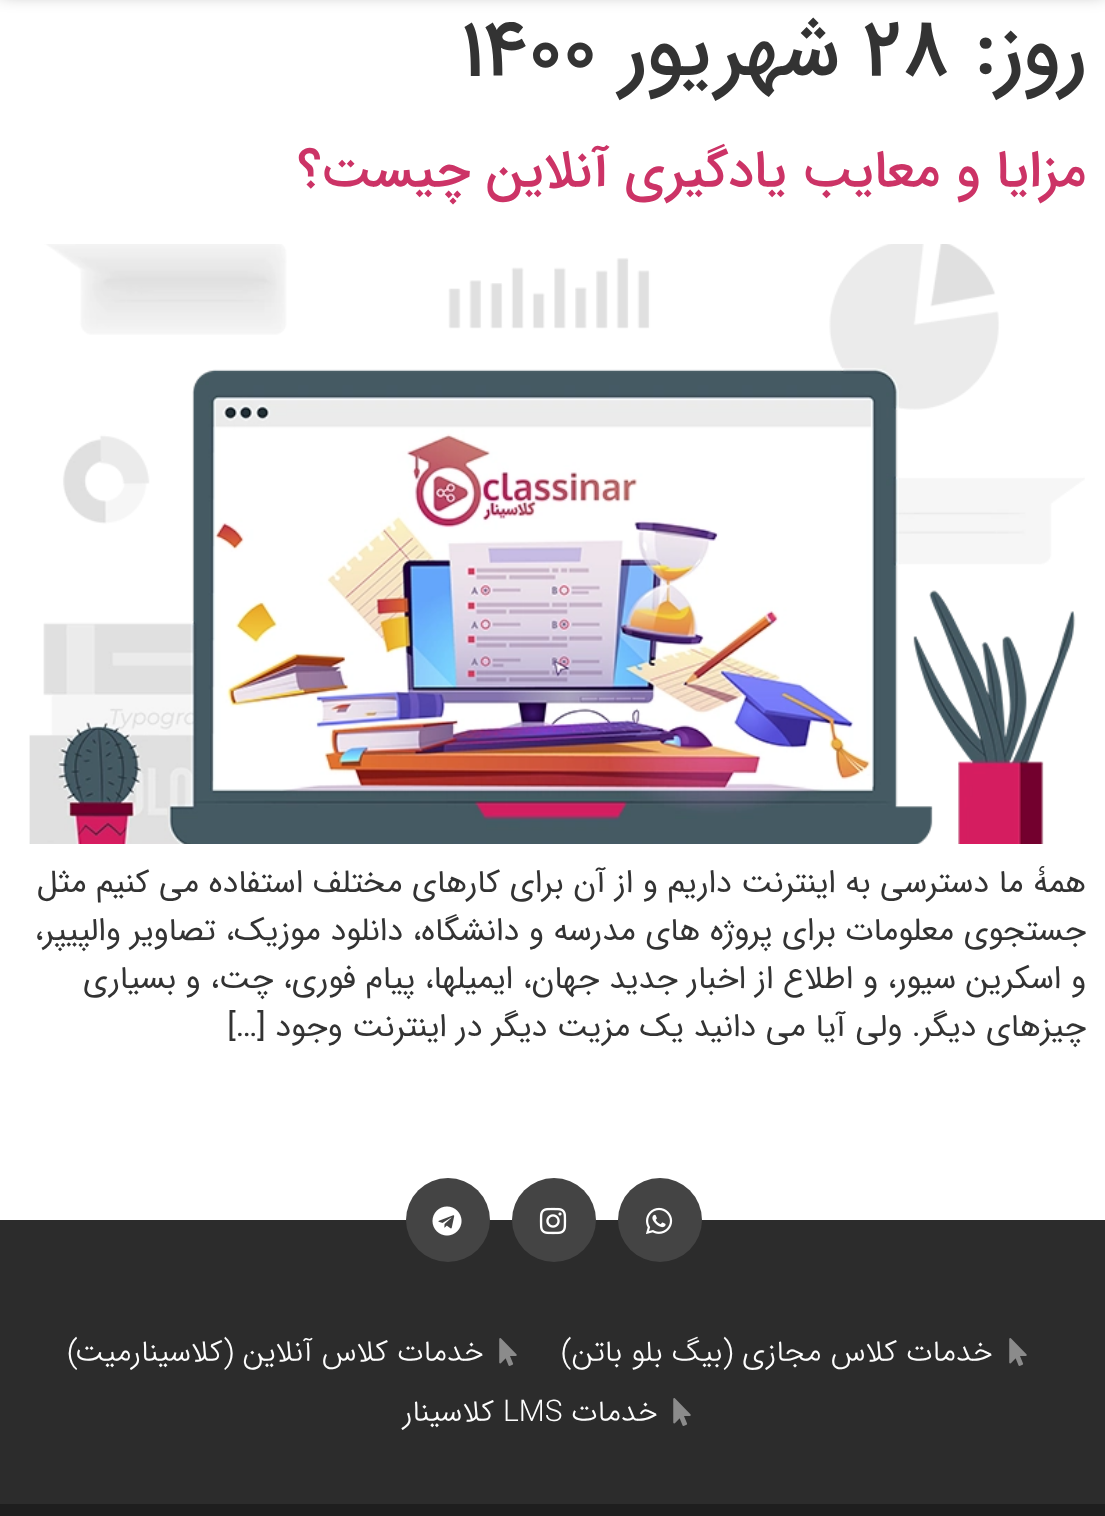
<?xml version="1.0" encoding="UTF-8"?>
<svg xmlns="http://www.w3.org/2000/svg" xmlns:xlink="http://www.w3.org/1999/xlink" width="1105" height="1516">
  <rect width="100%" height="100%" fill="#ffffff" />
  <rect y="-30" width="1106" height="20" fill="#000000" fill-opacity="0.5" filter="blur(10px)" />
  <image x="29" y="244" width="1056" height="600" xlink:href="image1.png" />
  <rect y="1220" width="1105" height="284" fill="#2c2c2c" />
  <circle cx="660" cy="1220" r="42" fill="#444444" />
  <image x="646" y="1207" width="27" height="27" xlink:href="image2.png" />
  <circle cx="554" cy="1220" r="42" fill="#444444" />
  <image x="539" y="1207" width="28" height="28" xlink:href="image3.png" />
  <circle cx="448" cy="1220" r="42" fill="#444444" />
  <image x="432" y="1206" width="30" height="30" xlink:href="image4.png" />
  <image x="1009" y="1338" width="18" height="28" xlink:href="image5.png" />
  <image x="499" y="1338" width="18" height="28" xlink:href="image5.png" />
  <image x="673" y="1398" width="18" height="28" xlink:href="image5.png" />
  <rect y="1504" width="1105" height="12" fill="#1e1e1e" />
  <text x="1086" y="74" style="font-family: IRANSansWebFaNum; font-size: 80px; font-weight: 500; direction: rtl; fill: #333333">روز:</text>
  <text x="863" y="74" style="font-family: IRANSansWebFaNum; font-size: 80px; font-weight: 500; fill: #333333">۲۸</text>
  <text x="839" y="74" style="font-family: IRANSansWebFaNum; font-size: 80px; font-weight: 500; direction: rtl; fill: #333333">شهریور</text>
  <text x="461" y="74" style="font-family: IRANSansWebFaNum; font-size: 80px; font-weight: 500; fill: #333333">۱۴۰۰</text>
  <text x="1086" y="186" style="font-family: IRANSansWebFaNum; font-size: 52px; font-weight: 500; direction: rtl; fill: #cc3366">مزایا و معایب یادگیری آنلاین چیست؟</text>
  <text x="1086" y="892" style="font-family: IRANSansWebFaNum; font-size: 32px; direction: rtl; fill: #333333">همۀ ما دسترسی به اینترنت داریم و از آن برای کارهای مختلف استفاده می کنیم مثل</text>
  <text x="1086" y="940" style="font-family: IRANSansWebFaNum; font-size: 32px; direction: rtl; fill: #333333">جستجوی معلومات برای پروژه های مدرسه و دانشگاه، دانلود موزیک، تصاویر والپیپر،</text>
  <text x="1086" y="988" style="font-family: IRANSansWebFaNum; font-size: 32px; direction: rtl; fill: #333333">و اسکرین سیور، و اطلاع از اخبار جدید جهان، ایمیلها، پیام فوری، چت، و بسیاری</text>
  <text x="1086" y="1036" style="font-family: IRANSansWebFaNum; font-size: 32px; direction: rtl; fill: #333333">چیزهای دیگر. ولی آیا می دانید یک مزیت دیگر در اینترنت وجود […]</text>
  <text x="993" y="1361" style="font-family: IRANSansWebFaNum; font-size: 30px; font-weight: 300; direction: rtl; fill: #fdfdfd">خدمات کلاس مجازی (بیگ بلو باتن)</text>
  <text x="484" y="1361" style="font-family: IRANSansWebFaNum; font-size: 30px; font-weight: 300; direction: rtl; fill: #fdfdfd">خدمات کلاس آنلاین (کلاسینارمیت)</text>
  <text x="658" y="1421" style="font-family: IRANSansWebFaNum; font-size: 30px; font-weight: 300; direction: rtl; fill: #fdfdfd">خدمات</text>
  <text x="503" y="1421" style="font-family: IRANSansWebFaNum; font-size: 30px; font-weight: 300; fill: #fdfdfd">LMS</text>
  <text x="494" y="1421" style="font-family: IRANSansWebFaNum; font-size: 30px; font-weight: 300; direction: rtl; fill: #fdfdfd">کلاسینار</text>
</svg>
